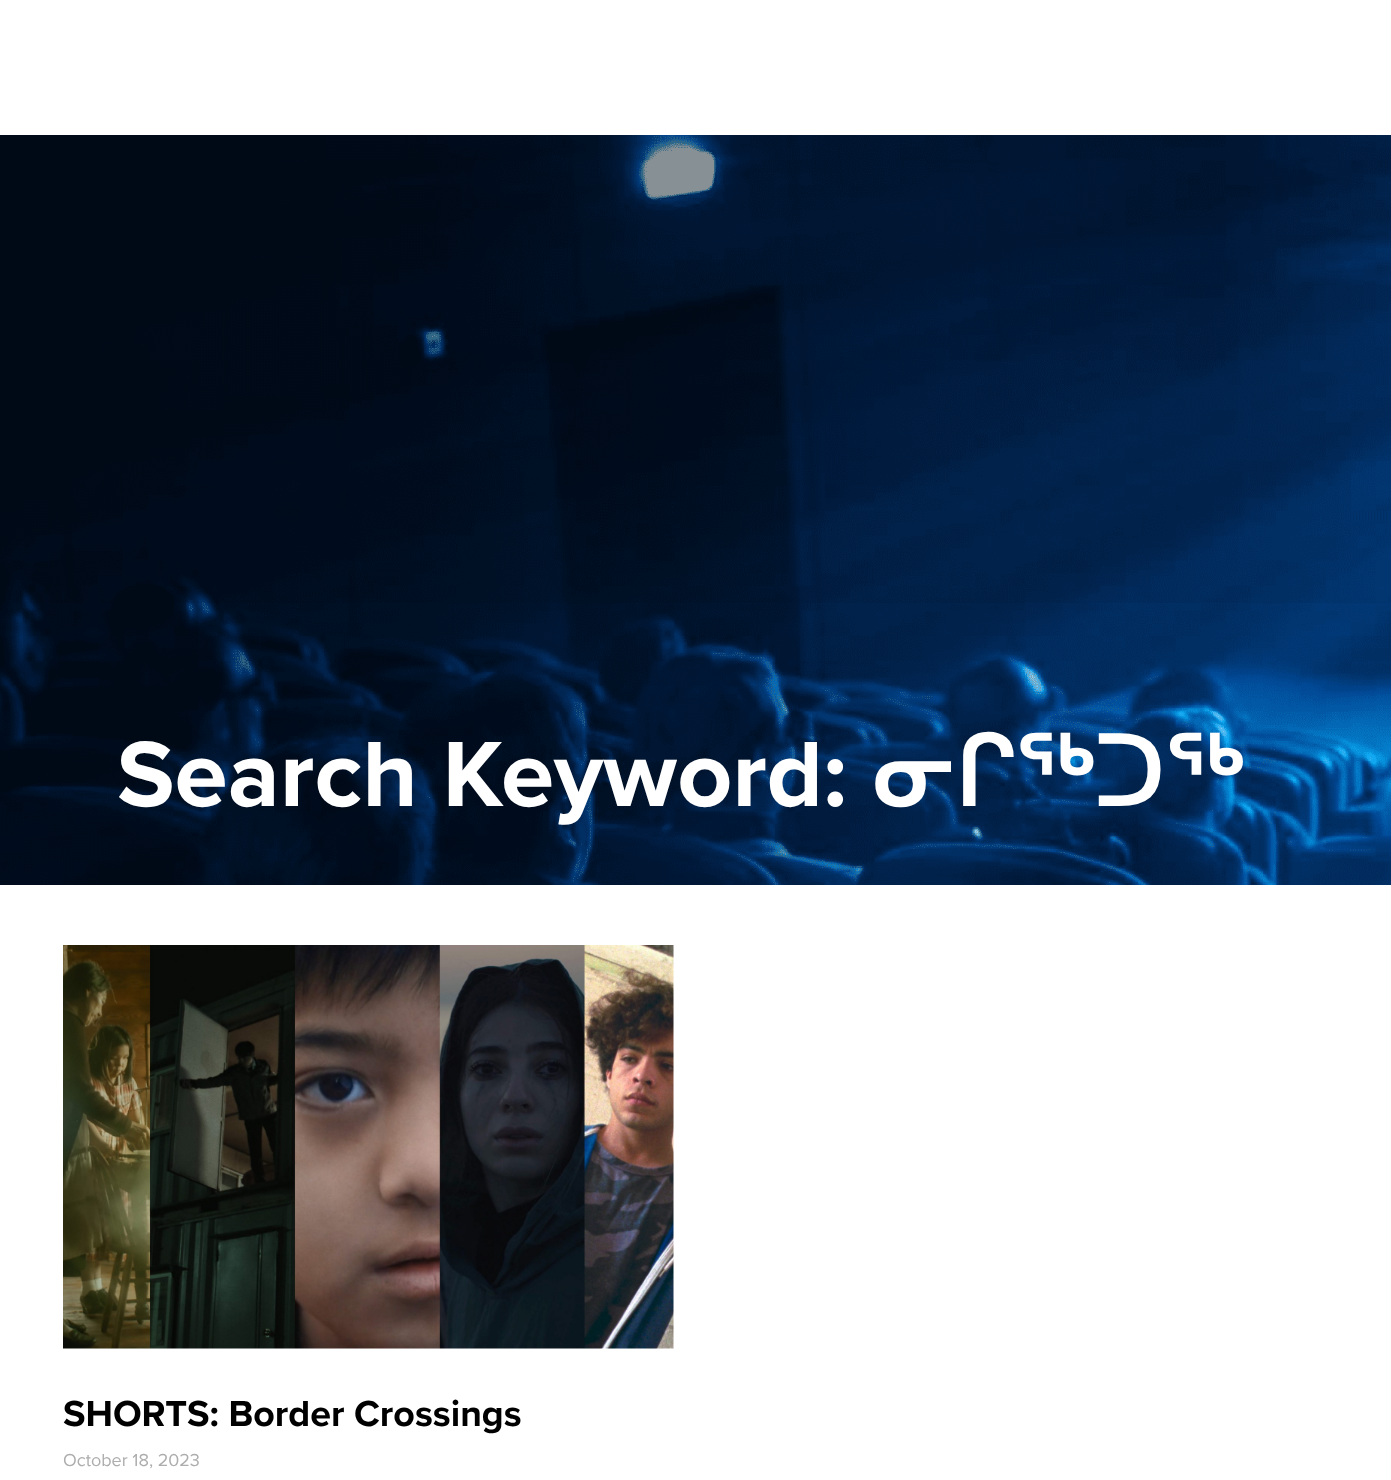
<?xml version="1.0" encoding="UTF-8"?>
<svg xmlns="http://www.w3.org/2000/svg" xmlns:xlink="http://www.w3.org/1999/xlink" width="1391" height="1480">
  <rect width="100%" height="100%" fill="#ffffff" />
  <image x="0" y="135" width="1391" height="750" xlink:href="image1.png" />
  <image x="63" y="945" width="611" height="404" xlink:href="image2.png" />
  <text x="117" y="806" style="font-family: Proxima Nova; font-size: 96px; font-weight: bold; fill: #ffffff">Search Keyword:</text>
  <text x="872" y="806" style="font-family: DejaVu Sans; font-size: 96px; font-weight: bold; fill: #ffffff">ᓂᒋᖅᑐᖅ</text>
  <text x="63" y="1426" style="font-family: Proxima Nova; font-size: 37.5px; font-weight: bold; fill: #000000">SHORTS: Border Crossings</text>
  <text x="63" y="1466" style="font-family: Proxima Nova; font-size: 18px; fill: #adadad">October 18, 2023</text>
</svg>
